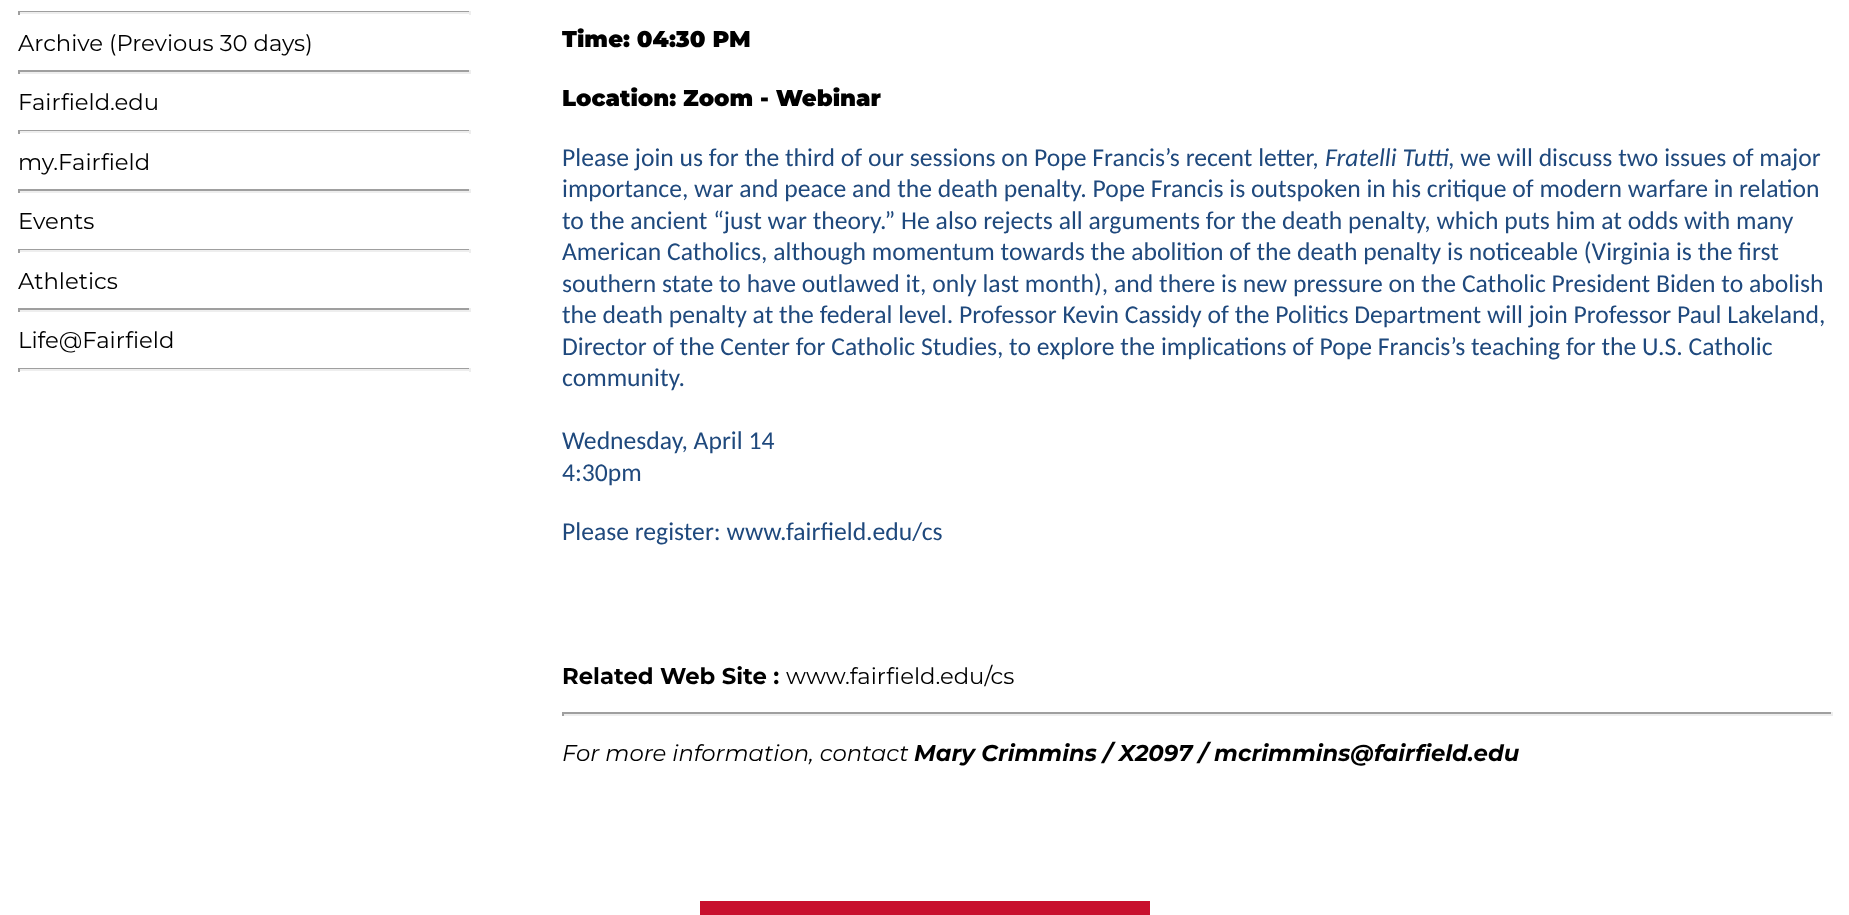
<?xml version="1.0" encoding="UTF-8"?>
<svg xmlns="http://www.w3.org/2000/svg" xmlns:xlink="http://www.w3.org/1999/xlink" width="1849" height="915">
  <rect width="100%" height="100%" fill="#ffffff" />
  <rect x="18" y="11" width="453" height="1" fill="#9f9f9f" />
  <rect x="469" y="11" width="2" height="4" fill="#eeeeee" />
  <rect x="18" y="12" width="453" height="2" fill="#eeeeee" />
  <rect x="18" y="11" width="2" height="4" fill="#9f9f9f" />
  <rect x="18" y="70" width="453" height="2" fill="#9f9f9f" />
  <rect x="469" y="70" width="2" height="4" fill="#eeeeee" />
  <rect x="18" y="72" width="453" height="2" fill="#eeeeee" />
  <rect x="18" y="70" width="2" height="4" fill="#9f9f9f" />
  <rect x="18" y="130" width="453" height="1" fill="#9f9f9f" />
  <rect x="469" y="130" width="2" height="4" fill="#eeeeee" />
  <rect x="18" y="131" width="453" height="2" fill="#eeeeee" />
  <rect x="18" y="130" width="2" height="4" fill="#9f9f9f" />
  <rect x="18" y="189" width="453" height="2" fill="#9f9f9f" />
  <rect x="469" y="189" width="2" height="4" fill="#eeeeee" />
  <rect x="18" y="191" width="453" height="2" fill="#eeeeee" />
  <rect x="18" y="189" width="2" height="4" fill="#9f9f9f" />
  <rect x="18" y="249" width="453" height="1" fill="#9f9f9f" />
  <rect x="469" y="249" width="2" height="4" fill="#eeeeee" />
  <rect x="18" y="250" width="453" height="2" fill="#eeeeee" />
  <rect x="18" y="249" width="2" height="4" fill="#9f9f9f" />
  <rect x="18" y="308" width="453" height="2" fill="#9f9f9f" />
  <rect x="469" y="308" width="2" height="4" fill="#eeeeee" />
  <rect x="18" y="310" width="453" height="2" fill="#eeeeee" />
  <rect x="18" y="308" width="2" height="4" fill="#9f9f9f" />
  <rect x="18" y="368" width="453" height="1" fill="#9f9f9f" />
  <rect x="469" y="368" width="2" height="4" fill="#eeeeee" />
  <rect x="18" y="369" width="453" height="2" fill="#eeeeee" />
  <rect x="18" y="368" width="2" height="4" fill="#9f9f9f" />
  <rect x="562" y="712" width="1270" height="2" fill="#9f9f9f" />
  <rect x="1831" y="712" width="2" height="4" fill="#eeeeee" />
  <rect x="562" y="714" width="1270" height="2" fill="#eeeeee" />
  <rect x="562" y="712" width="2" height="4" fill="#9f9f9f" />
  <rect x="700" y="901" width="450" height="14" fill="#c8102e" />
  <text x="18" y="51" style="font-family: Montserrat; font-size: 22.75px; fill: #000000">Archive (Previous 30 days)</text>
  <text x="18" y="110" style="font-family: Montserrat; font-size: 22.75px; fill: #000000">Fairfield.edu</text>
  <text x="18" y="170" style="font-family: Montserrat; font-size: 22.75px; fill: #000000">my.Fairfield</text>
  <text x="18" y="229" style="font-family: Montserrat; font-size: 22.75px; fill: #000000">Events</text>
  <text x="18" y="289" style="font-family: Montserrat; font-size: 22.75px; fill: #000000">Athletics</text>
  <text x="18" y="348" style="font-family: Montserrat; font-size: 22.75px; fill: #000000">Life@Fairfield</text>
  <text x="562" y="47" style="font-family: Montserrat; font-size: 22.75px; font-weight: 900; fill: #000000">Time: 04:30 PM</text>
  <text x="562" y="106" style="font-family: Montserrat; font-size: 22.75px; font-weight: 900; fill: #000000">Location: Zoom - Webinar</text>
  <text x="562" y="166" style="font-family: Carlito; font-size: 25.65px; fill: #1f497d">Please join us for the third of our sessions on Pope Francis’s recent letter,</text>
  <text x="1325" y="166" style="font-family: Carlito; font-size: 25.65px; font-style: italic; fill: #1f497d">Fratelli Tutti</text>
  <text x="1448" y="166" style="font-family: Carlito; font-size: 25.65px; fill: #1f497d">, we will discuss two issues of major</text>
  <text x="562" y="197" style="font-family: Carlito; font-size: 25.65px; fill: #1f497d">importance, war and peace and the death penalty. Pope Francis is outspoken in his critique of modern warfare in relation</text>
  <text x="562" y="229" style="font-family: Carlito; font-size: 25.65px; fill: #1f497d">to the ancient “just war theory.” He also rejects all arguments for the death penalty, which puts him at odds with many</text>
  <text x="562" y="260" style="font-family: Carlito; font-size: 25.65px; fill: #1f497d">American Catholics, although momentum towards the abolition of the death penalty is noticeable (Virginia is the first</text>
  <text x="562" y="292" style="font-family: Carlito; font-size: 25.65px; fill: #1f497d">southern state to have outlawed it, only last month), and there is new pressure on the Catholic President Biden to abolish</text>
  <text x="562" y="323" style="font-family: Carlito; font-size: 25.65px; fill: #1f497d">the death penalty at the federal level. Professor Kevin Cassidy of the Politics Department will join Professor Paul Lakeland,</text>
  <text x="562" y="355" style="font-family: Carlito; font-size: 25.65px; fill: #1f497d">Director of the Center for Catholic Studies, to explore the implications of Pope Francis’s teaching for the U.S. Catholic</text>
  <text x="562" y="386" style="font-family: Carlito; font-size: 25.65px; fill: #1f497d">community.</text>
  <text x="562" y="449" style="font-family: Carlito; font-size: 25.65px; fill: #1f497d">Wednesday, April 14</text>
  <text x="562" y="481" style="font-family: Carlito; font-size: 25.65px; fill: #1f497d">4:30pm</text>
  <text x="562" y="540" style="font-family: Carlito; font-size: 25.65px; fill: #1f497d">Please register: www.fairfield.edu/cs</text>
  <text x="562" y="684" style="font-family: Montserrat; font-size: 22.75px; font-weight: bold; fill: #000000">Related Web Site :</text>
  <text x="786" y="684" style="font-family: Montserrat; font-size: 22.75px; fill: #000000">www.fairfield.edu/cs</text>
  <text x="562" y="761" style="font-family: Montserrat; font-size: 22.75px; font-style: italic; fill: #000000">For more information, contact</text>
  <text x="914" y="761" style="font-family: Montserrat; font-size: 22.75px; font-weight: bold; font-style: italic; fill: #000000">Mary Crimmins / X2097 / mcrimmins@fairfield.edu</text>
</svg>
